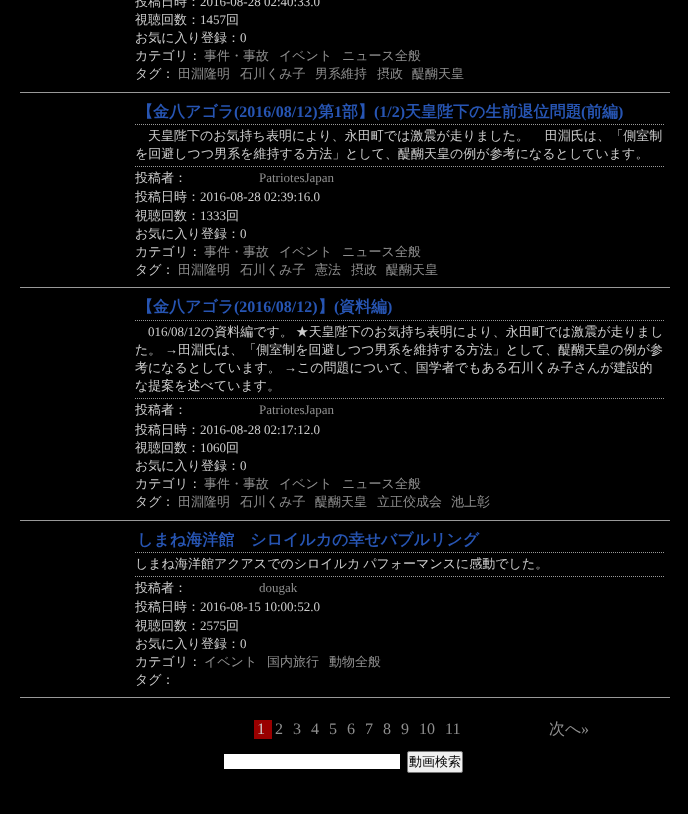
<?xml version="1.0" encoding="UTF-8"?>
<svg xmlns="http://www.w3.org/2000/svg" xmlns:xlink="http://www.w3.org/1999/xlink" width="688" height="814">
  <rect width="100%" height="100%" fill="#000000" />
  <rect x="20" y="92" width="650" height="1" fill="#999999" />
  <rect x="20" y="287" width="650" height="1" fill="#999999" />
  <path d="M 135 124.5 h 530" fill="none" stroke="#999999" stroke-dasharray="1 1" />
  <path d="M 135 166.5 h 530" fill="none" stroke="#999999" stroke-dasharray="1 1" />
  <rect x="20" y="520" width="650" height="1" fill="#999999" />
  <path d="M 135 320.5 h 530" fill="none" stroke="#999999" stroke-dasharray="1 1" />
  <path d="M 135 398.5 h 530" fill="none" stroke="#999999" stroke-dasharray="1 1" />
  <rect x="20" y="697" width="650" height="1" fill="#999999" />
  <path d="M 135 552.5 h 530" fill="none" stroke="#999999" stroke-dasharray="1 1" />
  <path d="M 135 576.5 h 530" fill="none" stroke="#999999" stroke-dasharray="1 1" />
  <rect x="254" y="720" width="18" height="19" fill="#990000" />
  <rect x="224" y="754" width="176" height="15" fill="#ffffff" />
  <rect x="407.5" y="751.5" width="55" height="21" rx="1.5" fill="#efefef" stroke="#767676" />
  <text x="135" y="6" style="font-family: WenQuanYi Zen Hei; font-size: 13px; font-weight: 500; fill: #cccccc">投稿日時：</text>
  <text x="200" y="6" style="font-family: Liberation Serif; font-size: 13px; fill: #cccccc">2016-08-28 02:40:33.0</text>
  <text x="135" y="24" style="font-family: WenQuanYi Zen Hei; font-size: 13px; font-weight: 500; fill: #cccccc">視聴回数：</text>
  <text x="200" y="24" style="font-family: Liberation Serif; font-size: 13px; fill: #cccccc">1457</text>
  <text x="226" y="24" style="font-family: WenQuanYi Zen Hei; font-size: 13px; font-weight: 500; fill: #cccccc">回</text>
  <text x="135" y="42" style="font-family: WenQuanYi Zen Hei; font-size: 13px; font-weight: 500; fill: #cccccc">お気に入り登録：</text>
  <text x="240" y="42" style="font-family: Liberation Serif; font-size: 13px; fill: #cccccc">0</text>
  <text x="135" y="60" style="font-family: WenQuanYi Zen Hei; font-size: 13px; font-weight: 500; fill: #cccccc">カテゴリ：</text>
  <text x="204" y="60" style="font-family: WenQuanYi Zen Hei; font-size: 13px; font-weight: 500; fill: #8f8f8f">事件・事故</text>
  <text x="279" y="60" style="font-family: WenQuanYi Zen Hei; font-size: 13px; font-weight: 500; fill: #8f8f8f">イベント</text>
  <text x="342" y="60" style="font-family: WenQuanYi Zen Hei; font-size: 13px; font-weight: 500; fill: #8f8f8f">ニュース全般</text>
  <text x="135" y="78" style="font-family: WenQuanYi Zen Hei; font-size: 13px; font-weight: 500; fill: #cccccc">タグ：</text>
  <text x="178" y="78" style="font-family: WenQuanYi Zen Hei; font-size: 13px; font-weight: 500; fill: #8f8f8f">田淵隆明</text>
  <text x="240" y="78" style="font-family: WenQuanYi Zen Hei; font-size: 13px; font-weight: 500; fill: #8f8f8f">石川くみ子</text>
  <text x="315" y="78" style="font-family: WenQuanYi Zen Hei; font-size: 13px; font-weight: 500; fill: #8f8f8f">男系維持</text>
  <text x="377" y="78" style="font-family: WenQuanYi Zen Hei; font-size: 13px; font-weight: 500; fill: #8f8f8f">摂政</text>
  <text x="412" y="78" style="font-family: WenQuanYi Zen Hei; font-size: 13px; font-weight: 500; fill: #8f8f8f">醍醐天皇</text>
  <text x="137" y="117" style="font-family: WenQuanYi Zen Hei; font-size: 16px; font-weight: bold; fill: #2755b3">【金八アゴラ</text>
  <text x="234" y="117" style="font-family: Liberation Serif; font-size: 16px; font-weight: bold; fill: #2755b3">(2016/08/12)</text>
  <text x="318" y="117" style="font-family: WenQuanYi Zen Hei; font-size: 16px; font-weight: bold; fill: #2755b3">第</text>
  <text x="334" y="117" style="font-family: Liberation Serif; font-size: 16px; font-weight: bold; fill: #2755b3">1</text>
  <text x="342" y="117" style="font-family: WenQuanYi Zen Hei; font-size: 16px; font-weight: bold; fill: #2755b3">部】</text>
  <text x="374" y="117" style="font-family: Liberation Serif; font-size: 16px; font-weight: bold; fill: #2755b3">(1/2)</text>
  <text x="405" y="117" style="font-family: WenQuanYi Zen Hei; font-size: 16px; font-weight: bold; fill: #2755b3">天皇陛下の生前退位問題</text>
  <text x="581" y="117" style="font-family: Liberation Serif; font-size: 16px; font-weight: bold; fill: #2755b3">(</text>
  <text x="586" y="117" style="font-family: WenQuanYi Zen Hei; font-size: 16px; font-weight: bold; fill: #2755b3">前編</text>
  <text x="618" y="117" style="font-family: Liberation Serif; font-size: 16px; font-weight: bold; fill: #2755b3">)</text>
  <text x="148" y="140" word-spacing="-1" style="font-family: WenQuanYi Zen Hei; font-size: 13px; font-weight: 500; fill: #cccccc">天皇陛下のお気持ち表明により、永田町では激震が走りました。 　田淵氏は、「側室制</text>
  <text x="135" y="158" style="font-family: WenQuanYi Zen Hei; font-size: 13px; font-weight: 500; fill: #cccccc">を回避しつつ男系を維持する方法」として、醍醐天皇の例が参考になるとしています。</text>
  <text x="135" y="182" style="font-family: WenQuanYi Zen Hei; font-size: 13px; font-weight: 500; fill: #cccccc">投稿者：</text>
  <text x="259" y="182" style="font-family: Liberation Serif; font-size: 13px; fill: #8f8f8f">PatriotesJapan</text>
  <text x="135" y="201" style="font-family: WenQuanYi Zen Hei; font-size: 13px; font-weight: 500; fill: #cccccc">投稿日時：</text>
  <text x="200" y="201" style="font-family: Liberation Serif; font-size: 13px; fill: #cccccc">2016-08-28 02:39:16.0</text>
  <text x="135" y="220" style="font-family: WenQuanYi Zen Hei; font-size: 13px; font-weight: 500; fill: #cccccc">視聴回数：</text>
  <text x="200" y="220" style="font-family: Liberation Serif; font-size: 13px; fill: #cccccc">1333</text>
  <text x="226" y="220" style="font-family: WenQuanYi Zen Hei; font-size: 13px; font-weight: 500; fill: #cccccc">回</text>
  <text x="135" y="238" style="font-family: WenQuanYi Zen Hei; font-size: 13px; font-weight: 500; fill: #cccccc">お気に入り登録：</text>
  <text x="240" y="238" style="font-family: Liberation Serif; font-size: 13px; fill: #cccccc">0</text>
  <text x="135" y="256" style="font-family: WenQuanYi Zen Hei; font-size: 13px; font-weight: 500; fill: #cccccc">カテゴリ：</text>
  <text x="204" y="256" style="font-family: WenQuanYi Zen Hei; font-size: 13px; font-weight: 500; fill: #8f8f8f">事件・事故</text>
  <text x="279" y="256" style="font-family: WenQuanYi Zen Hei; font-size: 13px; font-weight: 500; fill: #8f8f8f">イベント</text>
  <text x="342" y="256" style="font-family: WenQuanYi Zen Hei; font-size: 13px; font-weight: 500; fill: #8f8f8f">ニュース全般</text>
  <text x="135" y="274" style="font-family: WenQuanYi Zen Hei; font-size: 13px; font-weight: 500; fill: #cccccc">タグ：</text>
  <text x="178" y="274" style="font-family: WenQuanYi Zen Hei; font-size: 13px; font-weight: 500; fill: #8f8f8f">田淵隆明</text>
  <text x="240" y="274" style="font-family: WenQuanYi Zen Hei; font-size: 13px; font-weight: 500; fill: #8f8f8f">石川くみ子</text>
  <text x="315" y="274" style="font-family: WenQuanYi Zen Hei; font-size: 13px; font-weight: 500; fill: #8f8f8f">憲法</text>
  <text x="351" y="274" style="font-family: WenQuanYi Zen Hei; font-size: 13px; font-weight: 500; fill: #8f8f8f">摂政</text>
  <text x="386" y="274" style="font-family: WenQuanYi Zen Hei; font-size: 13px; font-weight: 500; fill: #8f8f8f">醍醐天皇</text>
  <text x="137" y="312" style="font-family: WenQuanYi Zen Hei; font-size: 16px; font-weight: bold; fill: #2755b3">【金八アゴラ</text>
  <text x="234" y="312" style="font-family: Liberation Serif; font-size: 16px; font-weight: bold; fill: #2755b3">(2016/08/12)</text>
  <text x="318" y="312" style="font-family: WenQuanYi Zen Hei; font-size: 16px; font-weight: bold; fill: #2755b3">】</text>
  <text x="334" y="312" style="font-family: Liberation Serif; font-size: 16px; font-weight: bold; fill: #2755b3">(</text>
  <text x="339" y="312" style="font-family: WenQuanYi Zen Hei; font-size: 16px; font-weight: bold; fill: #2755b3">資料編</text>
  <text x="387" y="312" style="font-family: Liberation Serif; font-size: 16px; font-weight: bold; fill: #2755b3">)</text>
  <text x="148" y="336" style="font-family: Liberation Serif; font-size: 13px; fill: #cccccc">016/08/12</text>
  <text x="201" y="336" word-spacing="-1" style="font-family: WenQuanYi Zen Hei; font-size: 13px; font-weight: 500; fill: #cccccc">の資料編です。 ★天皇陛下のお気持ち表明により、永田町では激震が走りまし</text>
  <text x="135" y="354" style="font-family: WenQuanYi Zen Hei; font-size: 13px; font-weight: 500; fill: #cccccc">た。</text>
  <text x="165" y="354" style="font-family: Liberation Serif; font-size: 13px; fill: #cccccc">→</text>
  <text x="178" y="354" style="font-family: WenQuanYi Zen Hei; font-size: 13px; font-weight: 500; fill: #cccccc">田淵氏は、「側室制を回避しつつ男系を維持する方法」として、醍醐天皇の例が参</text>
  <text x="135" y="372" style="font-family: WenQuanYi Zen Hei; font-size: 13px; font-weight: 500; fill: #cccccc">考になるとしています。</text>
  <text x="284" y="372" style="font-family: Liberation Serif; font-size: 13px; fill: #cccccc">→</text>
  <text x="297" y="372" style="font-family: WenQuanYi Zen Hei; font-size: 13px; font-weight: 500; fill: #cccccc">この問題について、国学者でもある石川くみ子さんが建設的</text>
  <text x="135" y="390" style="font-family: WenQuanYi Zen Hei; font-size: 13px; font-weight: 500; fill: #cccccc">な提案を述べています。</text>
  <text x="135" y="414" style="font-family: WenQuanYi Zen Hei; font-size: 13px; font-weight: 500; fill: #cccccc">投稿者：</text>
  <text x="259" y="414" style="font-family: Liberation Serif; font-size: 13px; fill: #8f8f8f">PatriotesJapan</text>
  <text x="135" y="434" style="font-family: WenQuanYi Zen Hei; font-size: 13px; font-weight: 500; fill: #cccccc">投稿日時：</text>
  <text x="200" y="434" style="font-family: Liberation Serif; font-size: 13px; fill: #cccccc">2016-08-28 02:17:12.0</text>
  <text x="135" y="452" style="font-family: WenQuanYi Zen Hei; font-size: 13px; font-weight: 500; fill: #cccccc">視聴回数：</text>
  <text x="200" y="452" style="font-family: Liberation Serif; font-size: 13px; fill: #cccccc">1060</text>
  <text x="226" y="452" style="font-family: WenQuanYi Zen Hei; font-size: 13px; font-weight: 500; fill: #cccccc">回</text>
  <text x="135" y="470" style="font-family: WenQuanYi Zen Hei; font-size: 13px; font-weight: 500; fill: #cccccc">お気に入り登録：</text>
  <text x="240" y="470" style="font-family: Liberation Serif; font-size: 13px; fill: #cccccc">0</text>
  <text x="135" y="488" style="font-family: WenQuanYi Zen Hei; font-size: 13px; font-weight: 500; fill: #cccccc">カテゴリ：</text>
  <text x="204" y="488" style="font-family: WenQuanYi Zen Hei; font-size: 13px; font-weight: 500; fill: #8f8f8f">事件・事故</text>
  <text x="279" y="488" style="font-family: WenQuanYi Zen Hei; font-size: 13px; font-weight: 500; fill: #8f8f8f">イベント</text>
  <text x="342" y="488" style="font-family: WenQuanYi Zen Hei; font-size: 13px; font-weight: 500; fill: #8f8f8f">ニュース全般</text>
  <text x="135" y="506" style="font-family: WenQuanYi Zen Hei; font-size: 13px; font-weight: 500; fill: #cccccc">タグ：</text>
  <text x="178" y="506" style="font-family: WenQuanYi Zen Hei; font-size: 13px; font-weight: 500; fill: #8f8f8f">田淵隆明</text>
  <text x="240" y="506" style="font-family: WenQuanYi Zen Hei; font-size: 13px; font-weight: 500; fill: #8f8f8f">石川くみ子</text>
  <text x="315" y="506" style="font-family: WenQuanYi Zen Hei; font-size: 13px; font-weight: 500; fill: #8f8f8f">醍醐天皇</text>
  <text x="377" y="506" style="font-family: WenQuanYi Zen Hei; font-size: 13px; font-weight: 500; fill: #8f8f8f">立正佼成会</text>
  <text x="451" y="506" style="font-family: WenQuanYi Zen Hei; font-size: 13px; font-weight: 500; fill: #8f8f8f">池上彰</text>
  <text x="137" y="545" style="font-family: WenQuanYi Zen Hei; font-size: 16px; font-weight: bold; fill: #2755b3">しまね海洋館　シロイルカの幸せバブルリング</text>
  <text x="135" y="568" word-spacing="-1" style="font-family: WenQuanYi Zen Hei; font-size: 13px; font-weight: 500; fill: #cccccc">しまね海洋館アクアスでのシロイルカ パフォーマンスに感動でした。</text>
  <text x="135" y="592" style="font-family: WenQuanYi Zen Hei; font-size: 13px; font-weight: 500; fill: #cccccc">投稿者：</text>
  <text x="259" y="592" style="font-family: Liberation Serif; font-size: 13px; fill: #8f8f8f">dougak</text>
  <text x="135" y="611" style="font-family: WenQuanYi Zen Hei; font-size: 13px; font-weight: 500; fill: #cccccc">投稿日時：</text>
  <text x="200" y="611" style="font-family: Liberation Serif; font-size: 13px; fill: #cccccc">2016-08-15 10:00:52.0</text>
  <text x="135" y="630" style="font-family: WenQuanYi Zen Hei; font-size: 13px; font-weight: 500; fill: #cccccc">視聴回数：</text>
  <text x="200" y="630" style="font-family: Liberation Serif; font-size: 13px; fill: #cccccc">2575</text>
  <text x="226" y="630" style="font-family: WenQuanYi Zen Hei; font-size: 13px; font-weight: 500; fill: #cccccc">回</text>
  <text x="135" y="648" style="font-family: WenQuanYi Zen Hei; font-size: 13px; font-weight: 500; fill: #cccccc">お気に入り登録：</text>
  <text x="240" y="648" style="font-family: Liberation Serif; font-size: 13px; fill: #cccccc">0</text>
  <text x="135" y="666" style="font-family: WenQuanYi Zen Hei; font-size: 13px; font-weight: 500; fill: #cccccc">カテゴリ：</text>
  <text x="204" y="666" style="font-family: WenQuanYi Zen Hei; font-size: 13px; font-weight: 500; fill: #8f8f8f">イベント</text>
  <text x="267" y="666" style="font-family: WenQuanYi Zen Hei; font-size: 13px; font-weight: 500; fill: #8f8f8f">国内旅行</text>
  <text x="329" y="666" style="font-family: WenQuanYi Zen Hei; font-size: 13px; font-weight: 500; fill: #8f8f8f">動物全般</text>
  <text x="135" y="684" style="font-family: WenQuanYi Zen Hei; font-size: 13px; font-weight: 500; fill: #cccccc">タグ：</text>
  <text x="257" y="734" style="font-family: Liberation Serif; font-size: 16px; fill: #cccccc">1</text>
  <text x="275" y="734" style="font-family: Liberation Serif; font-size: 16px; fill: #8f8f8f">2</text>
  <text x="293" y="734" style="font-family: Liberation Serif; font-size: 16px; fill: #8f8f8f">3</text>
  <text x="311" y="734" style="font-family: Liberation Serif; font-size: 16px; fill: #8f8f8f">4</text>
  <text x="329" y="734" style="font-family: Liberation Serif; font-size: 16px; fill: #8f8f8f">5</text>
  <text x="347" y="734" style="font-family: Liberation Serif; font-size: 16px; fill: #8f8f8f">6</text>
  <text x="365" y="734" style="font-family: Liberation Serif; font-size: 16px; fill: #8f8f8f">7</text>
  <text x="383" y="734" style="font-family: Liberation Serif; font-size: 16px; fill: #8f8f8f">8</text>
  <text x="401" y="734" style="font-family: Liberation Serif; font-size: 16px; fill: #8f8f8f">9</text>
  <text x="419" y="734" style="font-family: Liberation Serif; font-size: 16px; fill: #8f8f8f">10</text>
  <text x="445" y="734" style="font-family: Liberation Serif; font-size: 16px; fill: #8f8f8f">11</text>
  <text x="549" y="734" style="font-family: WenQuanYi Zen Hei; font-size: 16px; font-weight: 500; fill: #8f8f8f">次へ</text>
  <text x="581" y="734" style="font-family: Liberation Serif; font-size: 16px; fill: #8f8f8f">»</text>
  <text x="409" y="766" style="font-family: WenQuanYi Zen Hei; font-size: 13px; font-weight: 500; fill: #000000">動画検索</text>
</svg>
